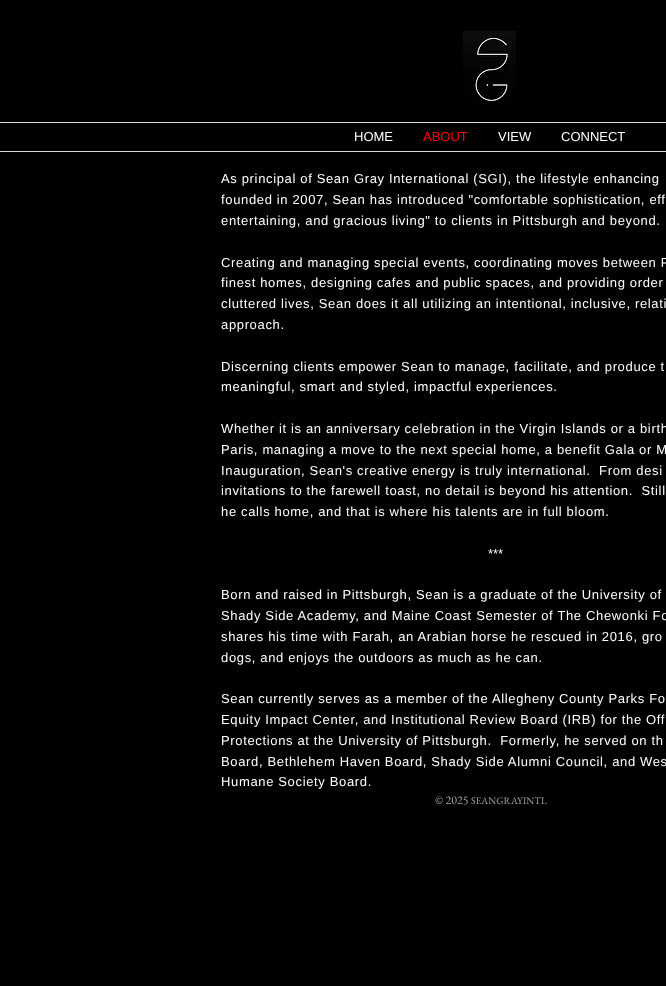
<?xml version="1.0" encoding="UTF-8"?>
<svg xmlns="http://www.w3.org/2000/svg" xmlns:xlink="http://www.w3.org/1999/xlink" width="666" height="986">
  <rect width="100%" height="100%" fill="#000000" />
  <image x="463" y="31" width="53" height="72" xlink:href="image1.png" />
  <rect y="122" width="666" height="1" fill="#d8d8d8" />
  <rect y="151" width="666" height="1" fill="#d8d8d8" />
  <text x="354" y="141" style="font-family: Liberation Sans; font-size: 13px; fill: #ffffff">HOME</text>
  <text x="423" y="141" style="font-family: Liberation Sans; font-size: 13px; fill: #ff0000">ABOUT</text>
  <text x="498" y="141" style="font-family: Liberation Sans; font-size: 13px; fill: #ffffff">VIEW</text>
  <text x="561" y="141" style="font-family: Liberation Sans; font-size: 13px; fill: #ffffff">CONNECT</text>
  <text x="221" y="183" style="font-family: Liberation Sans; font-size: 13px; letter-spacing: 0.65px; fill: #ffffff">As principal of Sean Gray International (SGI), the lifestyle enhancing</text>
  <text x="221" y="204" style="font-family: Liberation Sans; font-size: 13px; letter-spacing: 0.65px; fill: #ffffff">founded in 2007, Sean has introduced "comfortable sophistication, eff</text>
  <text x="221" y="225" style="font-family: Liberation Sans; font-size: 13px; letter-spacing: 0.65px; fill: #ffffff">entertaining, and gracious living" to clients in Pittsburgh and beyond.</text>
  <text x="221" y="267" style="font-family: Liberation Sans; font-size: 13px; letter-spacing: 0.65px; fill: #ffffff">Creating and managing special events, coordinating moves between P</text>
  <text x="221" y="287" style="font-family: Liberation Sans; font-size: 13px; letter-spacing: 0.65px; fill: #ffffff">finest homes, designing cafes and public spaces, and providing order</text>
  <text x="221" y="308" style="font-family: Liberation Sans; font-size: 13px; letter-spacing: 0.65px; fill: #ffffff">cluttered lives, Sean does it all utilizing an intentional, inclusive, relati</text>
  <text x="221" y="329" style="font-family: Liberation Sans; font-size: 13px; letter-spacing: 0.65px; fill: #ffffff">approach.</text>
  <text x="221" y="371" style="font-family: Liberation Sans; font-size: 13px; letter-spacing: 0.65px; fill: #ffffff">Discerning clients empower Sean to manage, facilitate, and produce t</text>
  <text x="221" y="391" style="font-family: Liberation Sans; font-size: 13px; letter-spacing: 0.65px; fill: #ffffff">meaningful, smart and styled, impactful experiences.</text>
  <text x="221" y="433" style="font-family: Liberation Sans; font-size: 13px; letter-spacing: 0.65px; fill: #ffffff">Whether it is an anniversary celebration in the Virgin Islands or a birth</text>
  <text x="221" y="454" style="font-family: Liberation Sans; font-size: 13px; letter-spacing: 0.65px; fill: #ffffff">Paris, managing a move to the next special home, a benefit Gala or M</text>
  <text x="221" y="475" style="font-family: Liberation Sans; font-size: 13px; letter-spacing: 0.65px; fill: #ffffff" xml:space="preserve">Inauguration, Sean's creative energy is truly international.  From desi</text>
  <text x="221" y="495" style="font-family: Liberation Sans; font-size: 13px; letter-spacing: 0.65px; fill: #ffffff" xml:space="preserve">invitations to the farewell toast, no detail is beyond his attention.  Still</text>
  <text x="221" y="516" style="font-family: Liberation Sans; font-size: 13px; letter-spacing: 0.65px; fill: #ffffff">he calls home, and that is where his talents are in full bloom.</text>
  <text x="488" y="558" style="font-family: Liberation Sans; font-size: 13px; fill: #ffffff">***</text>
  <text x="221" y="599" style="font-family: Liberation Sans; font-size: 13px; letter-spacing: 0.65px; fill: #ffffff">Born and raised in Pittsburgh, Sean is a graduate of the University of</text>
  <text x="221" y="620" style="font-family: Liberation Sans; font-size: 13px; letter-spacing: 0.65px; fill: #ffffff">Shady Side Academy, and Maine Coast Semester of The Chewonki Fo</text>
  <text x="221" y="641" style="font-family: Liberation Sans; font-size: 13px; letter-spacing: 0.65px; fill: #ffffff">shares his time with Farah, an Arabian horse he rescued in 2016, gro</text>
  <text x="221" y="662" style="font-family: Liberation Sans; font-size: 13px; letter-spacing: 0.65px; fill: #ffffff">dogs, and enjoys the outdoors as much as he can.</text>
  <text x="221" y="703" style="font-family: Liberation Sans; font-size: 13px; letter-spacing: 0.65px; fill: #ffffff">Sean currently serves as a member of the Allegheny County Parks Fo</text>
  <text x="221" y="724" style="font-family: Liberation Sans; font-size: 13px; letter-spacing: 0.65px; fill: #ffffff">Equity Impact Center, and Institutional Review Board (IRB) for the Off</text>
  <text x="221" y="745" style="font-family: Liberation Sans; font-size: 13px; letter-spacing: 0.65px; fill: #ffffff" xml:space="preserve">Protections at the University of Pittsburgh.  Formerly, he served on th</text>
  <text x="221" y="766" style="font-family: Liberation Sans; font-size: 13px; letter-spacing: 0.65px; fill: #ffffff">Board, Bethlehem Haven Board, Shady Side Alumni Council, and Wes</text>
  <text x="221" y="786" style="font-family: Liberation Sans; font-size: 13px; letter-spacing: 0.65px; fill: #ffffff">Humane Society Board.</text>
  <text x="435" y="804" style="font-family: EB Garamond; font-size: 12px; fill: #a9a9a9">© 2025</text>
  <text x="471" y="804" style="font-family: EB Garamond; font-size: 10px; fill: #a9a9a9">SEANGRAYINTL</text>
</svg>
